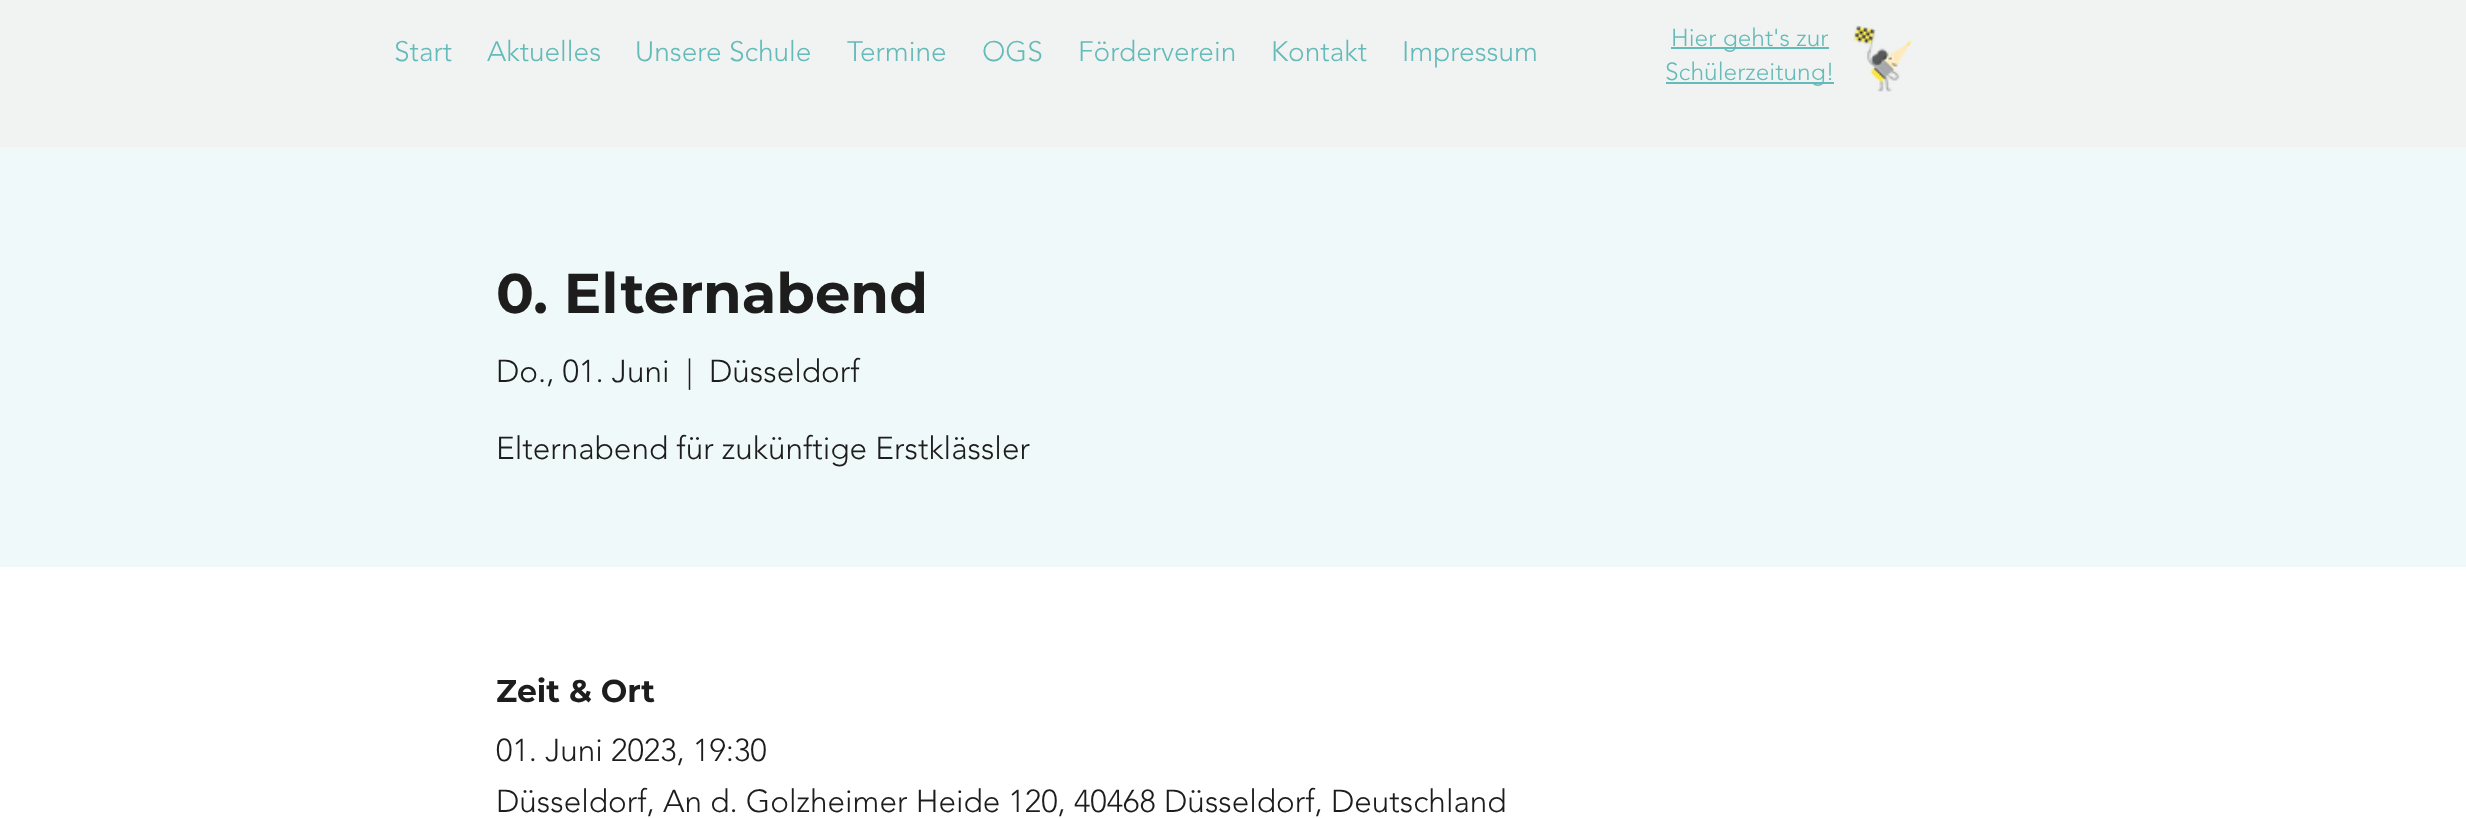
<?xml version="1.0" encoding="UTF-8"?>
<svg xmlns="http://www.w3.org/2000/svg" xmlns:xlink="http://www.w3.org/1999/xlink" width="2466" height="818">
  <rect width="100%" height="100%" fill="#ffffff" />
  <rect width="2466" height="147" fill="#f1f3f2" />
  <rect x="1671" y="47" width="158" height="2" fill="#64bbb9" />
  <rect x="1666" y="82" width="168" height="2" fill="#64bbb9" />
  <image x="1853" y="25" width="59" height="67" xlink:href="image1.png" />
  <rect y="147" width="2466" height="420" fill="#f0f9f9" />
  <text x="394" y="61" style="font-family: 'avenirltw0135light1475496'; font-size: 28px; font-weight: 300; fill: #64bbb9">Start</text>
  <text x="487" y="61" style="font-family: 'avenirltw0135light1475496'; font-size: 28px; font-weight: 300; fill: #64bbb9">Aktuelles</text>
  <text x="635" y="61" style="font-family: 'avenirltw0135light1475496'; font-size: 28px; font-weight: 300; fill: #64bbb9">Unsere Schule</text>
  <text x="847" y="61" style="font-family: 'avenirltw0135light1475496'; font-size: 28px; font-weight: 300; fill: #64bbb9">Termine</text>
  <text x="982" y="61" style="font-family: 'avenirltw0135light1475496'; font-size: 28px; font-weight: 300; fill: #64bbb9">OGS</text>
  <text x="1078" y="61" style="font-family: 'avenirltw0135light1475496'; font-size: 28px; font-weight: 300; fill: #64bbb9">Förderverein</text>
  <text x="1271" y="61" style="font-family: 'avenirltw0135light1475496'; font-size: 28px; font-weight: 300; fill: #64bbb9">Kontakt</text>
  <text x="1402" y="61" style="font-family: 'avenirltw0135light1475496'; font-size: 28px; font-weight: 300; fill: #64bbb9">Impressum</text>
  <text x="1671" y="46" style="font-family: 'avenirltw0135light1475496'; font-size: 24.5px; font-weight: 300; fill: #64bbb9">Hier geht's zur</text>
  <text x="1665" y="80" style="font-family: 'avenirltw0135light1475496'; font-size: 24.5px; font-weight: 300; fill: #64bbb9">Schülerzeitung!</text>
  <text x="496" y="313" style="font-family: Montserrat; font-size: 56px; font-weight: bold; fill: #1c1d1c">0. Elternabend</text>
  <text x="496" y="382" style="font-family: 'avenirltw0135light1475496'; font-size: 31.5px; font-weight: 300; fill: #1c1d1c">Do., 01. Juni</text>
  <text x="686" y="382" style="font-family: 'avenirltw0135light1475496'; font-size: 31.5px; font-weight: 300; fill: #1c1d1c">|</text>
  <text x="709" y="382" style="font-family: 'avenirltw0135light1475496'; font-size: 31.5px; font-weight: 300; fill: #1c1d1c">Düsseldorf</text>
  <text x="496" y="459" style="font-family: 'avenirltw0135light1475496'; font-size: 31.5px; font-weight: 300; fill: #1c1d1c">Elternabend für zukünftige Erstklässler</text>
  <text x="496" y="702" style="font-family: Montserrat; font-size: 31.5px; font-weight: bold; fill: #1c1d1c">Zeit &amp; Ort</text>
  <text x="496" y="761" style="font-family: 'avenirltw0135light1475496'; font-size: 31.5px; font-weight: 300; fill: #1c1d1c">01. Juni 2023, 19:30</text>
  <text x="496" y="812" style="font-family: 'avenirltw0135light1475496'; font-size: 31.5px; font-weight: 300; fill: #1c1d1c">Düsseldorf, An d. Golzheimer Heide 120, 40468 Düsseldorf, Deutschland</text>
</svg>
